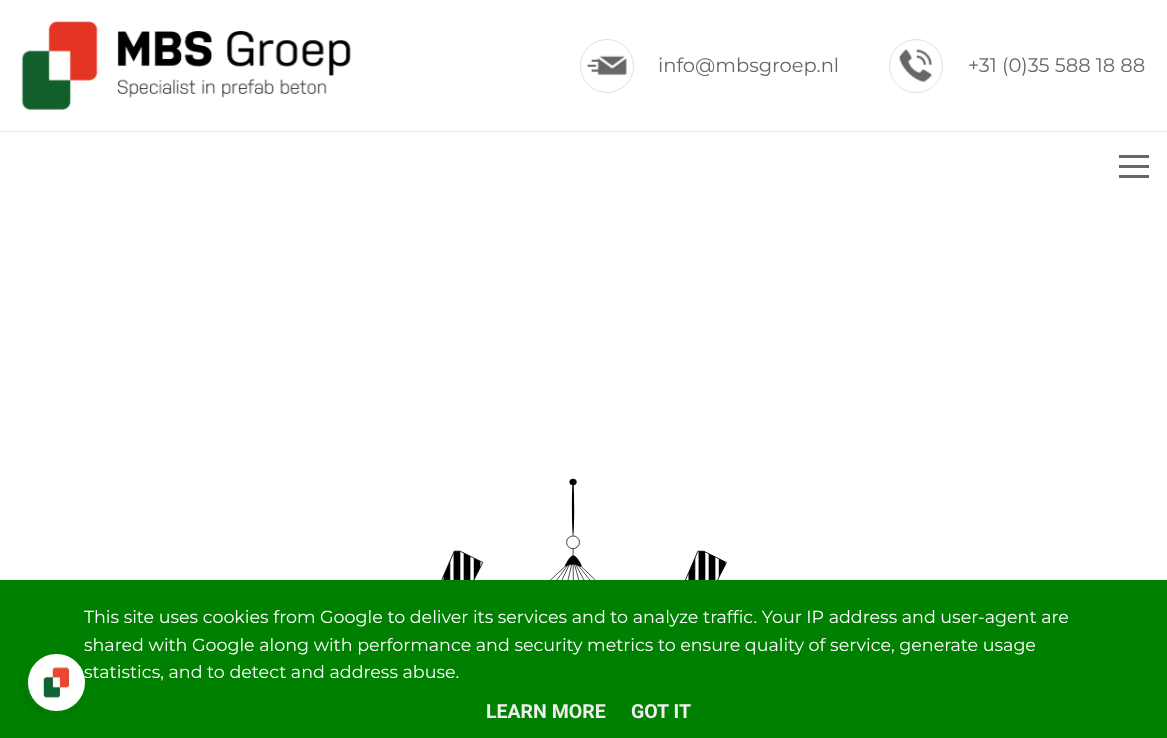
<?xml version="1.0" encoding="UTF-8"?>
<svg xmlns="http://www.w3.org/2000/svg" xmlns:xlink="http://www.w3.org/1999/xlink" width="1167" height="738">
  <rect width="100%" height="100%" fill="#ffffff" />
  <image x="21" y="21" width="330" height="89" xlink:href="image1.png" />
  <circle cx="607" cy="66" r="26.5" fill="none" stroke="#e1e1e1" />
  <image x="586" y="55" width="41" height="21" xlink:href="image2.png" />
  <circle cx="916" cy="66" r="26.5" fill="none" stroke="#e1e1e1" />
  <image x="898" y="48" width="34" height="34" xlink:href="image3.png" />
  <rect y="131" width="1167" height="1" fill="#e8e8ed" />
  <rect x="1119" y="155" width="30" height="3" fill="#666666" />
  <rect x="1119" y="165" width="30" height="3" fill="#666666" />
  <rect x="1119" y="175" width="30" height="3" fill="#666666" />
  <image x="441" y="478" width="286" height="102" xlink:href="image4.png" />
  <rect y="580" width="1167" height="158" fill="#008000" />
  <rect x="23" y="654" width="62" height="62" rx="31" fill="#000000" fill-opacity="0.1" filter="blur(3px)" />
  <circle cx="56.5" cy="682.5" r="30" fill="#ffffff" stroke="#008000" stroke-width="3" />
  <image x="41" y="665" width="31" height="34" xlink:href="image5.png" />
  <text x="658" y="72" style="font-family: Montserrat; font-size: 19.5px; fill: #666666">info@mbsgroep.nl</text>
  <text x="968" y="72" style="font-family: Montserrat; font-size: 19.5px; fill: #666666">+31 (0)35 588 18 88</text>
  <text x="84" y="623" style="font-family: Montserrat; font-size: 17.5px; fill: #ffffff">This site uses cookies from Google to deliver its services and to analyze traffic. Your IP address and user-agent are</text>
  <text x="84" y="651" style="font-family: Montserrat; font-size: 17.5px; fill: #ffffff">shared with Google along with performance and security metrics to ensure quality of service, generate usage</text>
  <text x="84" y="678" style="font-family: Montserrat; font-size: 17.5px; fill: #ffffff">statistics, and to detect and address abuse.</text>
  <text x="486" y="718" style="font-family: Roboto; font-size: 19.5px; font-weight: bold; fill: #eeeeee">LEARN MORE</text>
  <text x="631" y="718" style="font-family: Roboto; font-size: 19.5px; font-weight: bold; fill: #eeeeee">GOT IT</text>
</svg>
